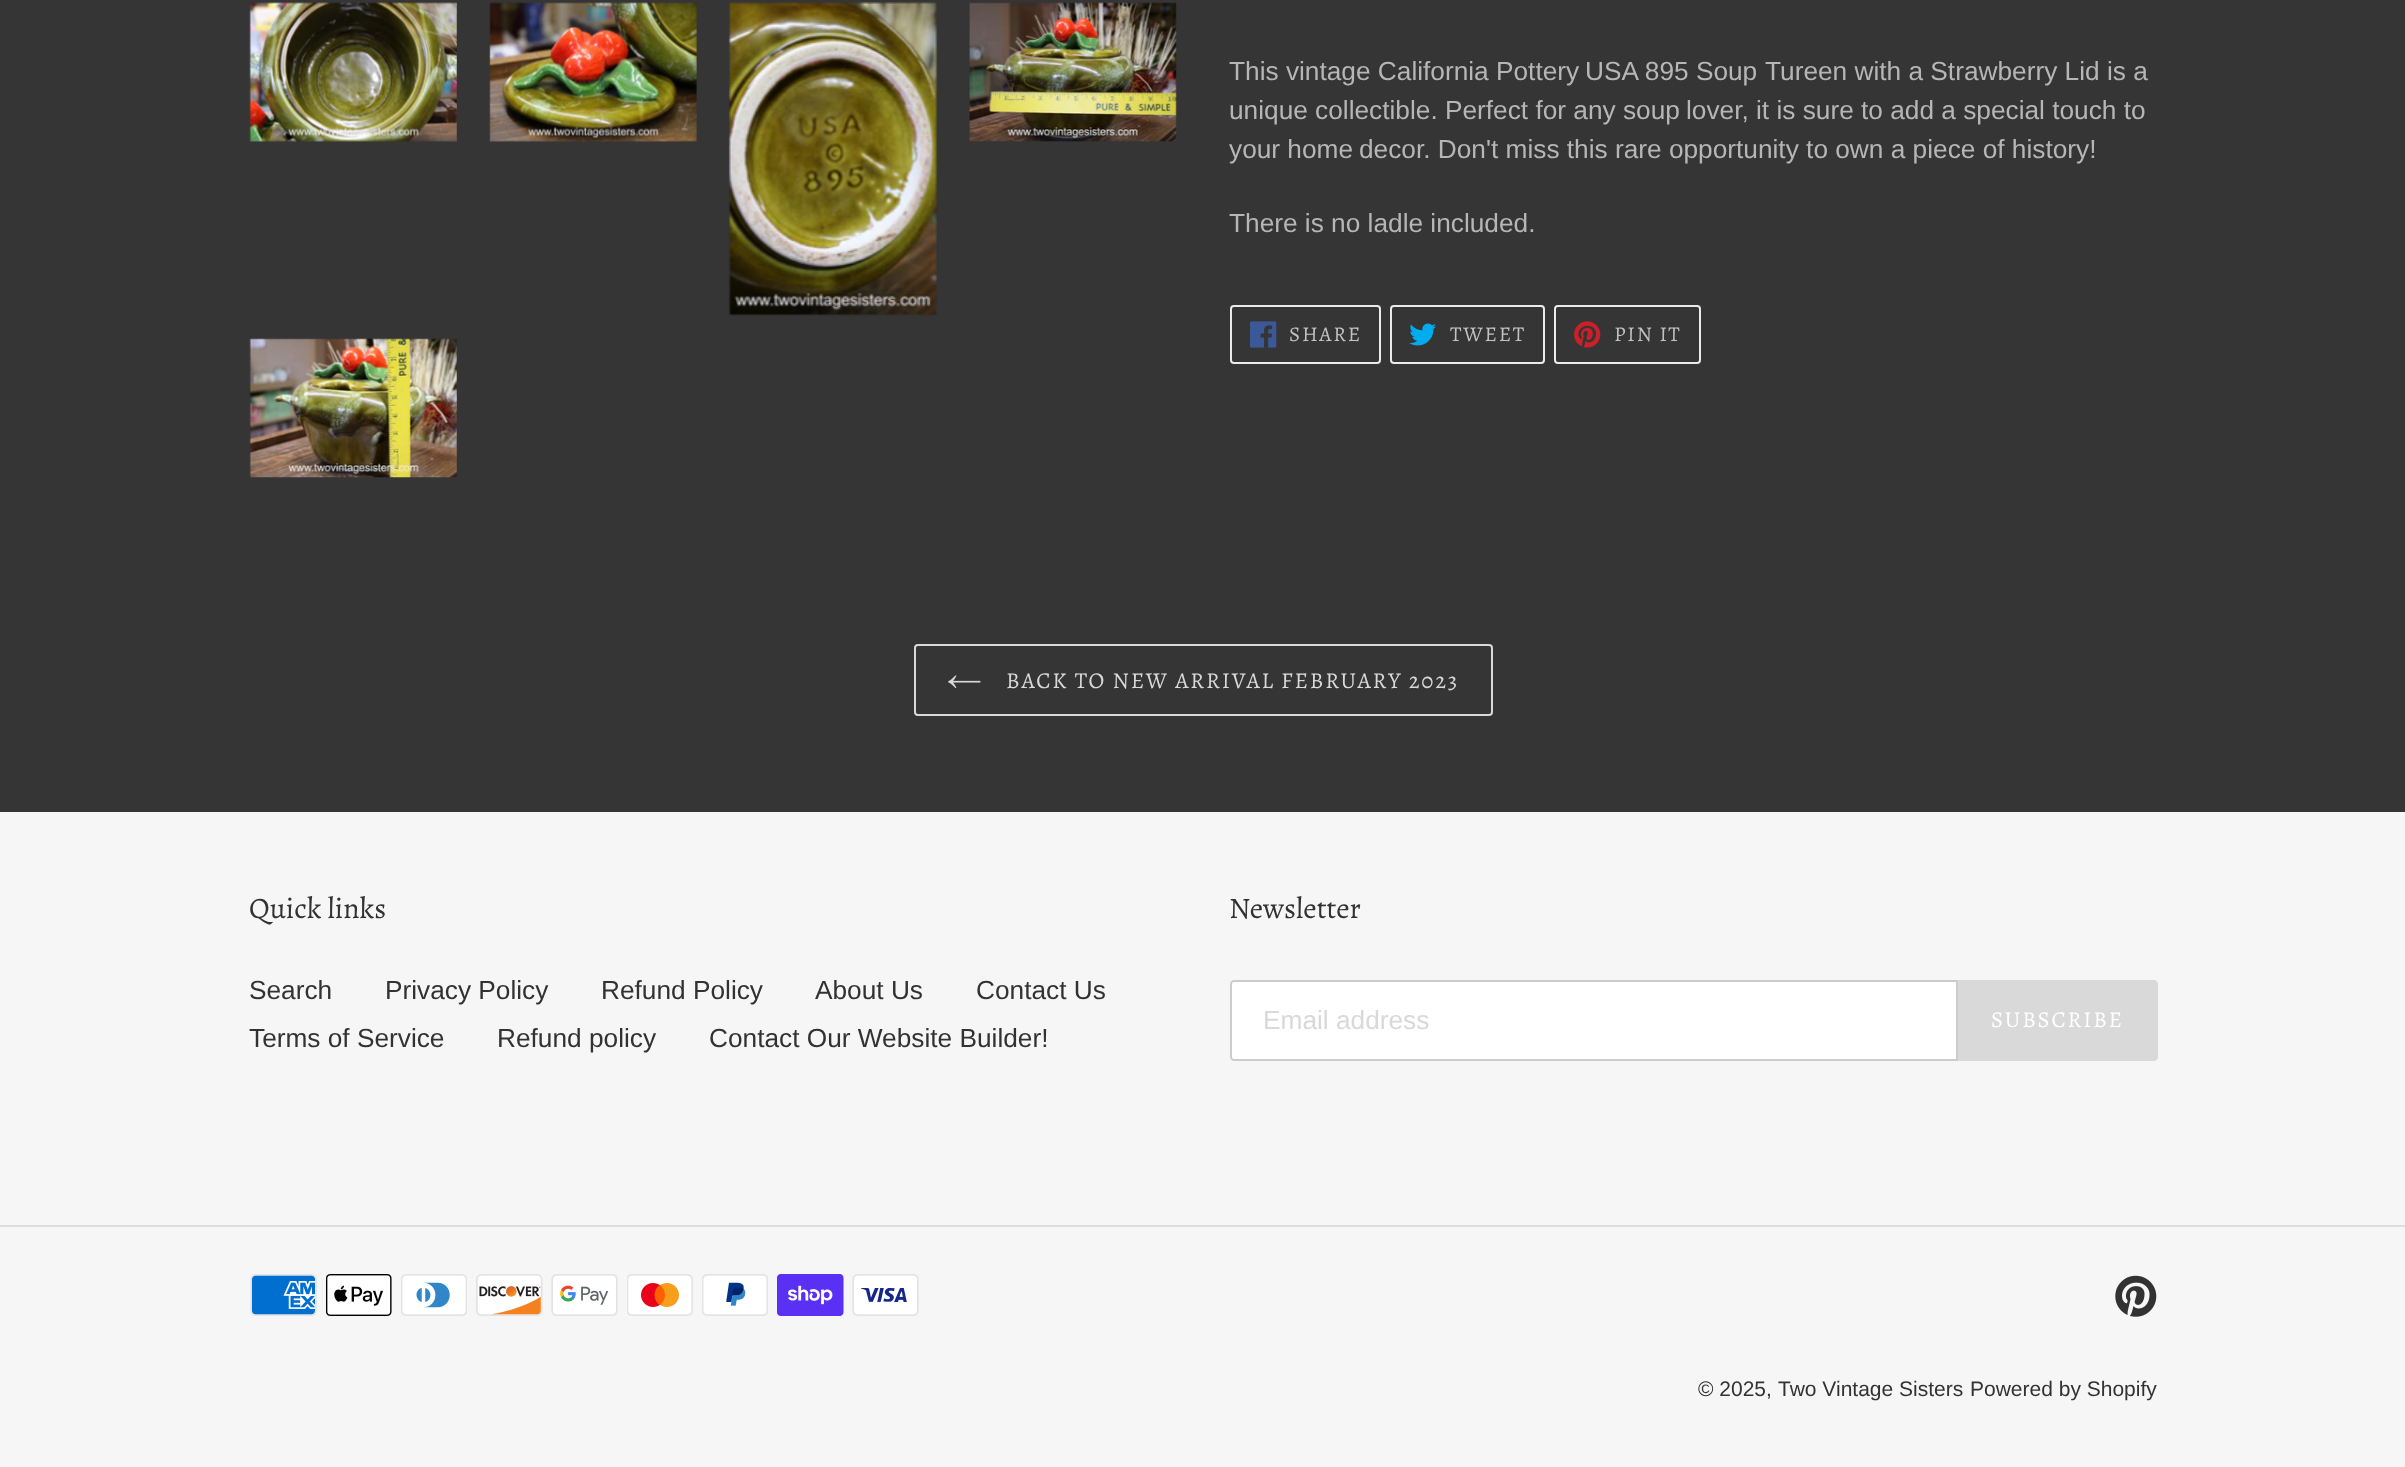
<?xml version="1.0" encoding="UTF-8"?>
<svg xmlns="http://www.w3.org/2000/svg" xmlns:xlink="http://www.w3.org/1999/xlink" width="2405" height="1467">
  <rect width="100%" height="100%" fill="#353535" />
  <image x="249" y="2" width="208" height="140" xlink:href="image1.png" />
  <image x="489" y="2" width="208" height="140" xlink:href="image2.png" />
  <image x="728" y="2" width="210" height="314" xlink:href="image3.png" />
  <image x="969" y="2" width="208" height="140" xlink:href="image4.png" />
  <image x="249" y="338" width="208" height="140" xlink:href="image5.png" />
  <rect x="1231" y="306" width="149" height="57" rx="3" fill="none" stroke="#ebebeb" stroke-width="2" />
  <image x="1250" y="321" width="27" height="27" xlink:href="image6.png" />
  <rect x="1391" y="306" width="153" height="57" rx="3" fill="none" stroke="#ebebeb" stroke-width="2" />
  <image x="1409" y="323" width="27" height="23" xlink:href="image7.png" />
  <rect x="1555" y="306" width="145" height="57" rx="3" fill="none" stroke="#ebebeb" stroke-width="2" />
  <image x="1574" y="321" width="27" height="27" xlink:href="image8.png" />
  <rect x="915" y="645" width="577" height="70" rx="3" fill="none" stroke="#d9d9d9" stroke-width="2" />
  <image x="948" y="675" width="33" height="13" xlink:href="image9.png" />
  <rect y="812" width="2405" height="655" fill="#f6f6f6" />
  <path d="M 1234 981 h 723 v 79 h -723 c -1.5 0 -3 -1.5 -3 -3 v -73 c 0 -1.5 1.5 -3 3 -3 z" fill="#ffffff" stroke="#cccccc" stroke-width="2" />
  <path d="M 1958 980 h 196 c 2 0 4 2 4 4 v 73 c 0 2 -2 4 -4 4 h -196 z" fill="#d9d9d9" />
  <rect y="1225" width="2405" height="2" fill="#dddddd" />
  <image x="250" y="1274" width="67" height="42" xlink:href="image10.png" />
  <image x="326" y="1274" width="66" height="42" xlink:href="image11.png" />
  <image x="401" y="1274" width="66" height="42" xlink:href="image12.png" />
  <image x="476" y="1274" width="67" height="42" xlink:href="image13.png" />
  <image x="551" y="1274" width="67" height="42" xlink:href="image14.png" />
  <image x="627" y="1274" width="66" height="42" xlink:href="image15.png" />
  <image x="702" y="1274" width="66" height="42" xlink:href="image16.png" />
  <image x="777" y="1274" width="67" height="42" xlink:href="image17.png" />
  <image x="852" y="1274" width="67" height="42" xlink:href="image18.png" />
  <image x="2115" y="1275" width="42" height="42" xlink:href="image19.png" />
  <text x="1229" y="80" style="font-family: Liberation Sans; font-size: 26.25px; fill: #b6b6b6">This vintage California Pottery</text>
  <text x="1585" y="80" style="font-family: Liberation Sans; font-size: 26.25px; fill: #b6b6b6">USA 895 Soup</text>
  <text x="1765" y="80" style="font-family: Liberation Sans; font-size: 26.25px; fill: #b6b6b6">Tureen with a Strawberry Lid is a</text>
  <text x="1229" y="119" style="font-family: Liberation Sans; font-size: 26.25px; fill: #b6b6b6">unique collectible. Perfect for any soup</text>
  <text x="1686" y="119" style="font-family: Liberation Sans; font-size: 26.25px; fill: #b6b6b6">lover, it is sure to add a special touch to</text>
  <text x="1229" y="158" style="font-family: Liberation Sans; font-size: 26.25px; fill: #b6b6b6">your home</text>
  <text x="1359" y="158" style="font-family: Liberation Sans; font-size: 26.25px; fill: #b6b6b6">decor. Don't miss this rare opportunity to own a piece of history!</text>
  <text x="1229" y="232" style="font-family: Liberation Sans; font-size: 26.25px; fill: #b6b6b6">There is no ladle included.</text>
  <text x="1289" y="341" style="font-family: Alegreya; font-size: 21px; letter-spacing: 1.75px; fill: #c2c2c2">SHARE</text>
  <text x="1450" y="341" style="font-family: Alegreya; font-size: 21px; letter-spacing: 1.75px; fill: #c2c2c2">TWEET</text>
  <text x="1614" y="341" style="font-family: Alegreya; font-size: 21px; letter-spacing: 1.75px; fill: #c2c2c2">PIN IT</text>
  <text x="1006" y="688" style="font-family: Alegreya; font-size: 22.75px; letter-spacing: 1.8px; fill: #d9d9d9">BACK TO NEW ARRIVAL FEBRUARY 2023</text>
  <text x="249" y="918" style="font-family: Alegreya; font-size: 29.75px; fill: #333232">Quick links</text>
  <text x="249" y="999" style="font-family: Liberation Sans; font-size: 26.25px; fill: #333232">Search</text>
  <text x="385" y="999" style="font-family: Liberation Sans; font-size: 26.25px; fill: #333232">Privacy Policy</text>
  <text x="601" y="999" style="font-family: Liberation Sans; font-size: 26.25px; fill: #333232">Refund Policy</text>
  <text x="815" y="999" style="font-family: Liberation Sans; font-size: 26.25px; fill: #333232">About Us</text>
  <text x="976" y="999" style="font-family: Liberation Sans; font-size: 26.25px; fill: #333232">Contact Us</text>
  <text x="249" y="1047" style="font-family: Liberation Sans; font-size: 26.25px; fill: #333232">Terms of Service</text>
  <text x="497" y="1047" style="font-family: Liberation Sans; font-size: 26.25px; fill: #333232">Refund policy</text>
  <text x="709" y="1047" style="font-family: Liberation Sans; font-size: 26.25px; fill: #333232">Contact Our Website Builder!</text>
  <text x="1229" y="918" style="font-family: Alegreya; font-size: 29.75px; fill: #333232">Newsletter</text>
  <text x="1263" y="1029" style="font-family: Liberation Sans; font-size: 26.25px; fill: #d9d9d9">Email address</text>
  <text x="1991" y="1027" style="font-family: Alegreya; font-size: 22.75px; letter-spacing: 1.8px; fill: #ffffff">SUBSCRIBE</text>
  <text x="1698" y="1396" style="font-family: Liberation Sans; font-size: 21px; fill: #333232">© 2025,</text>
  <text x="1778" y="1396" style="font-family: Liberation Sans; font-size: 21px; fill: #333232">Two Vintage Sisters</text>
  <text x="1970" y="1396" style="font-family: Liberation Sans; font-size: 21px; fill: #333232">Powered by Shopify</text>
</svg>
